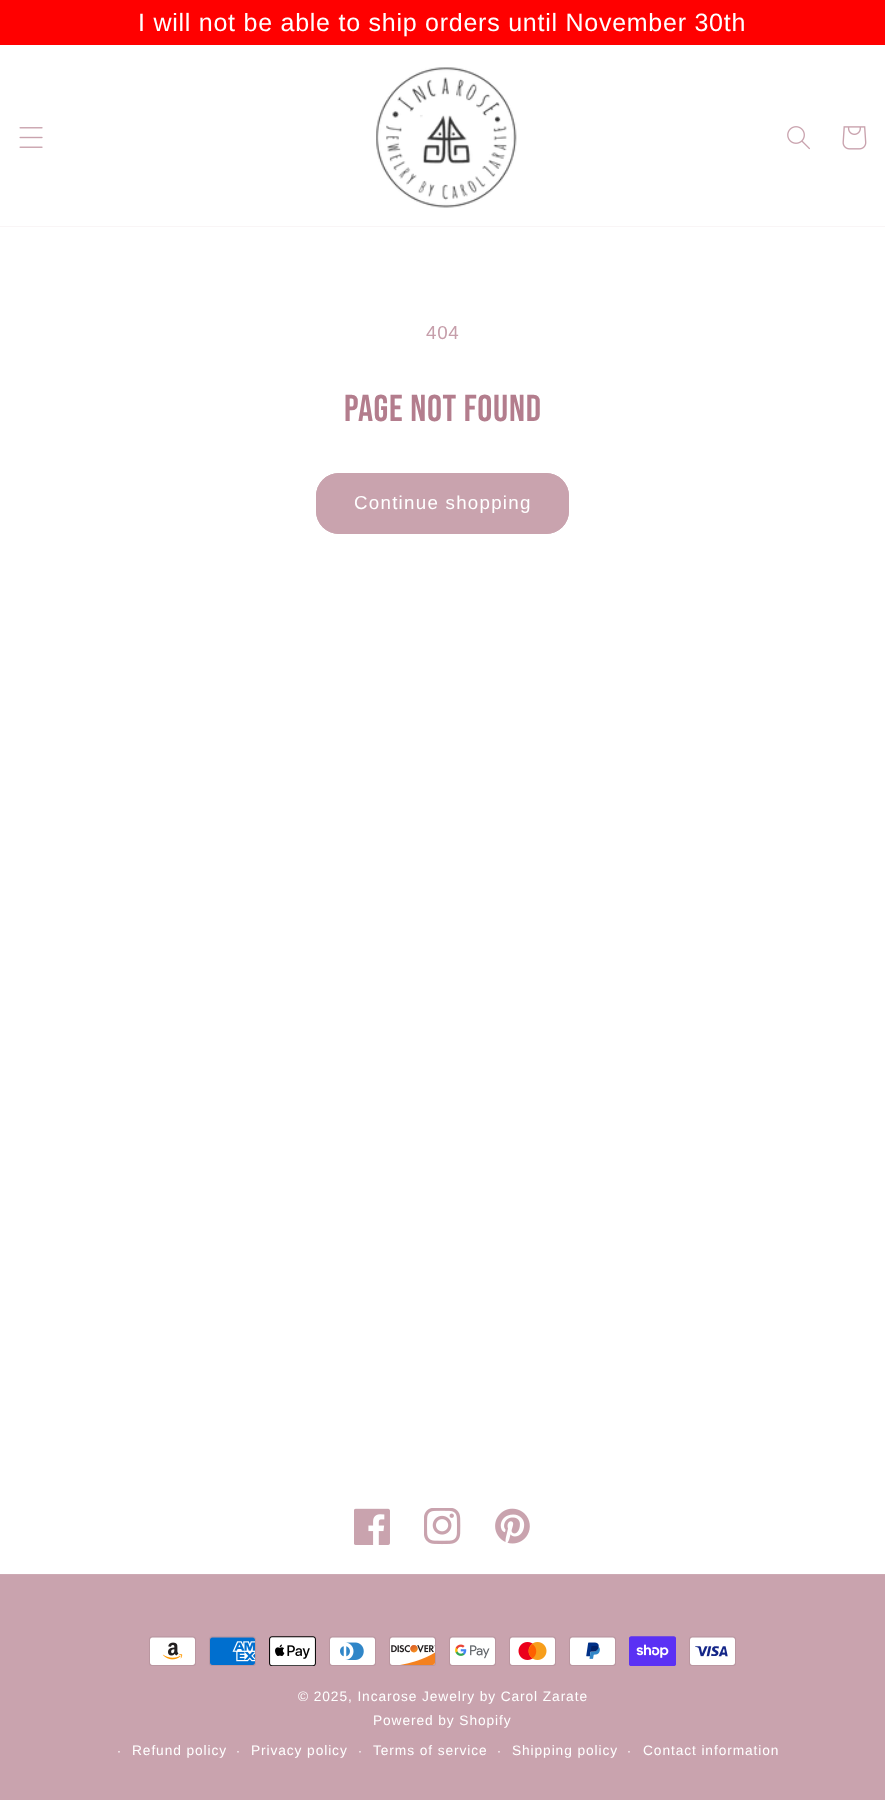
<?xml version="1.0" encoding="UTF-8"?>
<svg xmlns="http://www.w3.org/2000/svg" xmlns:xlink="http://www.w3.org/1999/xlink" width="885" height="1800">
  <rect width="100%" height="100%" fill="#ffffff" />
  <rect width="885" height="45" fill="#ff0000" />
  <rect y="226" width="885" height="1" fill="#f9f5f6" />
  <image x="19" y="127" width="24" height="21" xlink:href="image1.png" />
  <image x="376" y="67" width="141" height="141" xlink:href="image2.png" />
  <image x="787" y="126" width="23" height="24" xlink:href="image3.png" />
  <image x="842" y="126" width="25" height="24" xlink:href="image4.png" />
  <rect x="316" y="473" width="253" height="61" rx="23" fill="#c9a3ae" />
  <rect x="317.5" y="474.5" width="250" height="58" rx="21.5" fill="none" stroke="#c9a3ae" stroke-width="3" />
  <image x="354" y="1508" width="36" height="37" xlink:href="image5.png" />
  <image x="424" y="1508" width="37" height="37" xlink:href="image6.png" />
  <image x="495" y="1508" width="35" height="36" xlink:href="image7.png" />
  <rect y="1575" width="885" height="225" fill="#c9a3ae" />
  <rect y="1574" width="885" height="1" fill="#cdaab4" />
  <image x="149" y="1636" width="47" height="30" xlink:href="image8.png" />
  <image x="209" y="1636" width="47" height="30" xlink:href="image9.png" />
  <image x="269" y="1636" width="47" height="30" xlink:href="image10.png" />
  <image x="329" y="1636" width="47" height="30" xlink:href="image11.png" />
  <image x="389" y="1636" width="47" height="30" xlink:href="image12.png" />
  <image x="449" y="1636" width="47" height="30" xlink:href="image13.png" />
  <image x="509" y="1636" width="47" height="30" xlink:href="image14.png" />
  <image x="569" y="1636" width="47" height="30" xlink:href="image15.png" />
  <image x="629" y="1636" width="47" height="30" xlink:href="image16.png" />
  <image x="689" y="1636" width="47" height="30" xlink:href="image17.png" />
  <text x="138" y="31" style="font-family: Liberation Sans; font-size: 25px; letter-spacing: 0.75px; fill: #ffffff">I will not be able to ship orders until November 30th</text>
  <text x="426" y="339" style="font-family: Liberation Sans; font-size: 18.75px; letter-spacing: 0.75px; fill: #c69eaa">404</text>
  <text x="344" y="421" style="font-family: Bebas Neue; font-size: 37.5px; letter-spacing: 0.75px; fill: #b37d8d">Page not found</text>
  <text x="354" y="509" style="font-family: Liberation Sans; font-size: 18.75px; letter-spacing: 1.25px; fill: #ffffff">Continue shopping</text>
  <text x="298" y="1701" style="font-family: Liberation Sans; font-size: 13.75px; letter-spacing: 0.9px; fill: #ffffff">© 2025, Incarose Jewelry by Carol Zarate</text>
  <text x="373" y="1725" style="font-family: Liberation Sans; font-size: 13.75px; letter-spacing: 0.9px; fill: #ffffff">Powered by Shopify</text>
  <text x="117" y="1755" style="font-family: Liberation Sans; font-size: 12px; letter-spacing: 0.9px; fill: #ffffff">·</text>
  <text x="132" y="1755" style="font-family: Liberation Sans; font-size: 13.75px; letter-spacing: 0.9px; fill: #ffffff">Refund policy</text>
  <text x="236" y="1755" style="font-family: Liberation Sans; font-size: 12px; letter-spacing: 0.9px; fill: #ffffff">·</text>
  <text x="251" y="1755" style="font-family: Liberation Sans; font-size: 13.75px; letter-spacing: 0.9px; fill: #ffffff">Privacy policy</text>
  <text x="358" y="1755" style="font-family: Liberation Sans; font-size: 12px; letter-spacing: 0.9px; fill: #ffffff">·</text>
  <text x="373" y="1755" style="font-family: Liberation Sans; font-size: 13.75px; letter-spacing: 0.9px; fill: #ffffff">Terms of service</text>
  <text x="497" y="1755" style="font-family: Liberation Sans; font-size: 12px; letter-spacing: 0.9px; fill: #ffffff">·</text>
  <text x="512" y="1755" style="font-family: Liberation Sans; font-size: 13.75px; letter-spacing: 0.9px; fill: #ffffff">Shipping policy</text>
  <text x="627" y="1755" style="font-family: Liberation Sans; font-size: 12px; letter-spacing: 0.9px; fill: #ffffff">·</text>
  <text x="643" y="1755" style="font-family: Liberation Sans; font-size: 13.75px; letter-spacing: 0.9px; fill: #ffffff">Contact information</text>
</svg>
